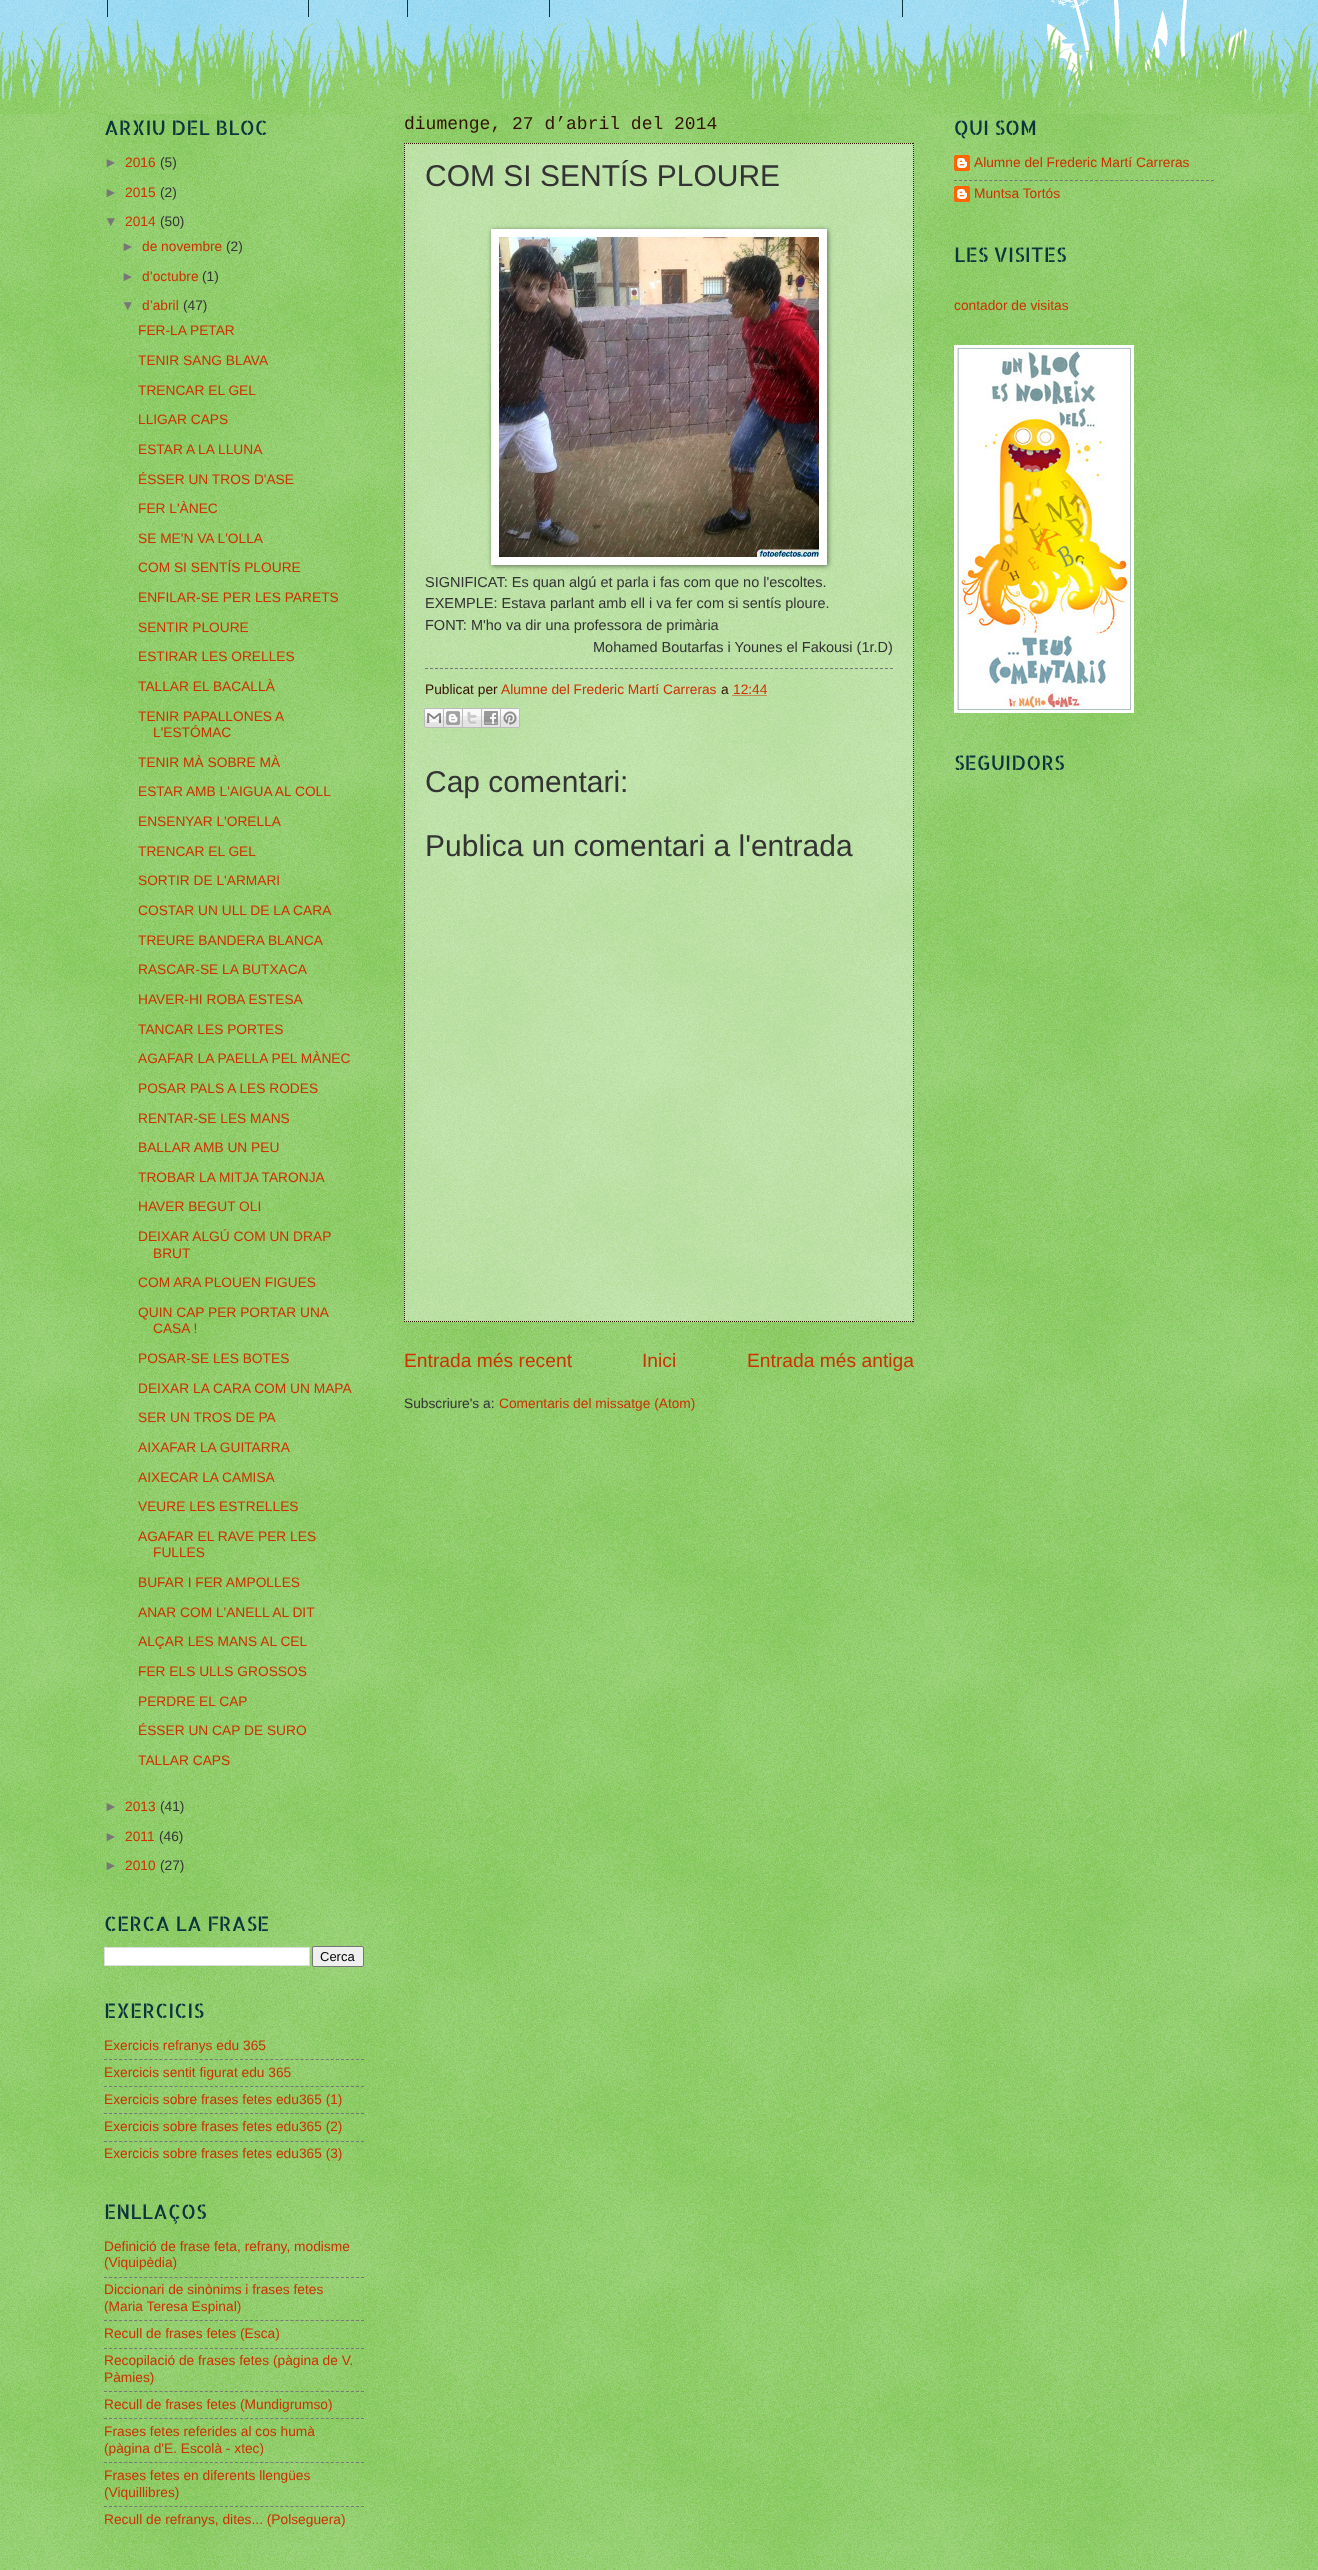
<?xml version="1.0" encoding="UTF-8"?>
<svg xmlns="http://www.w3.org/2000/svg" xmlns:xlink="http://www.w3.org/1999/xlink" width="1318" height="2570">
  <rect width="100%" height="100%" fill="#77ccee" />
  <image x="0" y="0" width="1318" height="109" xlink:href="image1.png" />
  <rect x="308" width="1" height="17" fill="#0c343d" />
  <rect x="107" width="1" height="17" fill="#0c343d" />
  <rect x="407" width="1" height="17" fill="#0c343d" />
  <rect x="549" width="1" height="17" fill="#0c343d" />
  <rect x="902" width="1" height="17" fill="#0c343d" />
  <rect y="114" width="1318" height="2456" fill="#66bb33" />
  <image x="0" y="114" width="1318" height="2456" xlink:href="image2.png" />
  <image x="1038" y="0" width="250" height="109" xlink:href="image3.png" />
  <image x="0" y="18" width="1318" height="96" xlink:href="image4.png" />
  <rect x="104.5" y="1947.5" width="205" height="18" fill="#ffffff" stroke="#dddddd" />
  <rect x="312.5" y="1946.5" width="51" height="20" rx="1.5" fill="#efefef" stroke="#767676" />
  <path d="M 104 2059.5 h 260" fill="none" stroke="#777777" stroke-dasharray="3 2.04" />
  <path d="M 104 2086.5 h 260" fill="none" stroke="#777777" stroke-dasharray="3 2.04" />
  <path d="M 104 2113.5 h 260" fill="none" stroke="#777777" stroke-dasharray="3 2.04" />
  <path d="M 104 2141.5 h 260" fill="none" stroke="#777777" stroke-dasharray="3 2.04" />
  <path d="M 104 2277.5 h 260" fill="none" stroke="#777777" stroke-dasharray="3 2.04" />
  <path d="M 104 2320.5 h 260" fill="none" stroke="#777777" stroke-dasharray="3 2.04" />
  <path d="M 104 2348.5 h 260" fill="none" stroke="#777777" stroke-dasharray="3 2.04" />
  <path d="M 104 2391.5 h 260" fill="none" stroke="#777777" stroke-dasharray="3 2.04" />
  <path d="M 104 2418.5 h 260" fill="none" stroke="#777777" stroke-dasharray="3 2.04" />
  <path d="M 104 2462.5 h 260" fill="none" stroke="#777777" stroke-dasharray="3 2.04" />
  <path d="M 104 2506.5 h 260" fill="none" stroke="#777777" stroke-dasharray="3 2.04" />
  <rect x="404" y="143" width="510" height="1179" fill="#ffffff" fill-opacity="0.4" />
  <path d="M 404 143.5 h 510" fill="none" stroke="#331100" stroke-dasharray="1 1" />
  <path d="M 913.5 143 v 1179" fill="none" stroke="#331100" stroke-dasharray="1 1" />
  <path d="M 404 1321.5 h 510" fill="none" stroke="#331100" stroke-dasharray="1 1" />
  <path d="M 404.5 143 v 1179" fill="none" stroke="#331100" stroke-dasharray="1 1" />
  <rect x="492" y="230" width="336" height="336" fill="#000000" fill-opacity="0.5" filter="blur(2.5px)" />
  <rect x="491" y="229" width="336" height="336" fill="#ffffff" />
  <image x="499" y="237" width="320" height="320" xlink:href="image5.png" />
  <path d="M 425 668.5 h 468" fill="none" stroke="#777777" stroke-dasharray="3 2" />
  <path d="M 732.5 695.5 h 34.5" fill="none" stroke="#cc3300" stroke-dasharray="1 1" />
  <image x="424" y="708" width="20" height="20" xlink:href="image6.png" />
  <image x="444" y="708" width="19" height="20" xlink:href="image7.png" />
  <image x="463" y="708" width="19" height="20" xlink:href="image8.png" />
  <image x="482" y="708" width="19" height="20" xlink:href="image9.png" />
  <image x="501" y="708" width="19" height="20" xlink:href="image10.png" />
  <image x="954" y="155" width="16" height="16" xlink:href="image11.png" />
  <path d="M 954 180.5 h 260" fill="none" stroke="#777777" stroke-dasharray="3 2.04" />
  <image x="954" y="186" width="16" height="16" xlink:href="image12.png" />
  <image x="954" y="345" width="180" height="368" xlink:href="image13.png" />
  <text x="104" y="135" style="font-family: Allerta Stencil; font-size: 20px; fill: #0c343d">ARXIU DEL BLOC</text>
  <text x="104" y="167" style="font-family: Liberation Sans; font-size: 13.75px; fill: #777777">►</text>
  <text x="125" y="167" style="font-family: Liberation Sans; font-size: 13.75px; fill: #cc3300">2016</text>
  <text x="160" y="167" style="font-family: Liberation Sans; font-size: 13.75px; fill: #333333">(5)</text>
  <text x="104" y="197" style="font-family: Liberation Sans; font-size: 13.75px; fill: #777777">►</text>
  <text x="125" y="197" style="font-family: Liberation Sans; font-size: 13.75px; fill: #cc3300">2015</text>
  <text x="160" y="197" style="font-family: Liberation Sans; font-size: 13.75px; fill: #333333">(2)</text>
  <text x="104" y="226" style="font-family: Liberation Sans; font-size: 13.75px; fill: #777777">▼</text>
  <text x="125" y="226" style="font-family: Liberation Sans; font-size: 13.75px; fill: #cc3300">2014</text>
  <text x="160" y="226" style="font-family: Liberation Sans; font-size: 13.75px; fill: #333333">(50)</text>
  <text x="121" y="251" style="font-family: Liberation Sans; font-size: 13.75px; fill: #777777">►</text>
  <text x="142" y="251" style="font-family: Liberation Sans; font-size: 13.75px; fill: #cc3300">de novembre</text>
  <text x="226" y="251" style="font-family: Liberation Sans; font-size: 13.75px; fill: #333333">(2)</text>
  <text x="121" y="281" style="font-family: Liberation Sans; font-size: 13.75px; fill: #777777">►</text>
  <text x="142" y="281" style="font-family: Liberation Sans; font-size: 13.75px; fill: #cc3300">d’octubre</text>
  <text x="202" y="281" style="font-family: Liberation Sans; font-size: 13.75px; fill: #333333">(1)</text>
  <text x="121" y="310" style="font-family: Liberation Sans; font-size: 13.75px; fill: #777777">▼</text>
  <text x="142" y="310" style="font-family: Liberation Sans; font-size: 13.75px; fill: #cc3300">d’abril</text>
  <text x="183" y="310" style="font-family: Liberation Sans; font-size: 13.75px; fill: #333333">(47)</text>
  <text x="138" y="335" style="font-family: Liberation Sans; font-size: 13.75px; fill: #cc3300">FER-LA PETAR</text>
  <text x="138" y="365" style="font-family: Liberation Sans; font-size: 13.75px; fill: #cc3300">TENIR SANG BLAVA</text>
  <text x="138" y="395" style="font-family: Liberation Sans; font-size: 13.75px; fill: #cc3300">TRENCAR EL GEL</text>
  <text x="138" y="424" style="font-family: Liberation Sans; font-size: 13.75px; fill: #cc3300">LLIGAR CAPS</text>
  <text x="138" y="454" style="font-family: Liberation Sans; font-size: 13.75px; fill: #cc3300">ESTAR A LA LLUNA</text>
  <text x="138" y="484" style="font-family: Liberation Sans; font-size: 13.75px; fill: #cc3300">ÉSSER UN TROS D'ASE</text>
  <text x="138" y="513" style="font-family: Liberation Sans; font-size: 13.75px; fill: #cc3300">FER L'ÀNEC</text>
  <text x="138" y="543" style="font-family: Liberation Sans; font-size: 13.75px; fill: #cc3300">SE ME'N VA L'OLLA</text>
  <text x="138" y="572" style="font-family: Liberation Sans; font-size: 13.75px; fill: #cc3300">COM SI SENTÍS PLOURE</text>
  <text x="138" y="602" style="font-family: Liberation Sans; font-size: 13.75px; fill: #cc3300">ENFILAR-SE PER LES PARETS</text>
  <text x="138" y="632" style="font-family: Liberation Sans; font-size: 13.75px; fill: #cc3300">SENTIR PLOURE</text>
  <text x="138" y="661" style="font-family: Liberation Sans; font-size: 13.75px; fill: #cc3300">ESTIRAR LES ORELLES</text>
  <text x="138" y="691" style="font-family: Liberation Sans; font-size: 13.75px; fill: #cc3300">TALLAR EL BACALLÀ</text>
  <text x="138" y="721" style="font-family: Liberation Sans; font-size: 13.75px; fill: #cc3300">TENIR PAPALLONES A</text>
  <text x="153" y="737" style="font-family: Liberation Sans; font-size: 13.75px; fill: #cc3300">L'ESTÓMAC</text>
  <text x="138" y="767" style="font-family: Liberation Sans; font-size: 13.75px; fill: #cc3300">TENIR MÀ SOBRE MÀ</text>
  <text x="138" y="796" style="font-family: Liberation Sans; font-size: 13.75px; fill: #cc3300">ESTAR AMB L'AIGUA AL COLL</text>
  <text x="138" y="826" style="font-family: Liberation Sans; font-size: 13.75px; fill: #cc3300">ENSENYAR L'ORELLA</text>
  <text x="138" y="856" style="font-family: Liberation Sans; font-size: 13.75px; fill: #cc3300">TRENCAR EL GEL</text>
  <text x="138" y="885" style="font-family: Liberation Sans; font-size: 13.75px; fill: #cc3300">SORTIR DE L'ARMARI</text>
  <text x="138" y="915" style="font-family: Liberation Sans; font-size: 13.75px; fill: #cc3300">COSTAR UN ULL DE LA CARA</text>
  <text x="138" y="945" style="font-family: Liberation Sans; font-size: 13.75px; fill: #cc3300">TREURE BANDERA BLANCA</text>
  <text x="138" y="974" style="font-family: Liberation Sans; font-size: 13.75px; fill: #cc3300">RASCAR-SE LA BUTXACA</text>
  <text x="138" y="1004" style="font-family: Liberation Sans; font-size: 13.75px; fill: #cc3300">HAVER-HI ROBA ESTESA</text>
  <text x="138" y="1034" style="font-family: Liberation Sans; font-size: 13.75px; fill: #cc3300">TANCAR LES PORTES</text>
  <text x="138" y="1063" style="font-family: Liberation Sans; font-size: 13.75px; fill: #cc3300">AGAFAR LA PAELLA PEL MÀNEC</text>
  <text x="138" y="1093" style="font-family: Liberation Sans; font-size: 13.75px; fill: #cc3300">POSAR PALS A LES RODES</text>
  <text x="138" y="1123" style="font-family: Liberation Sans; font-size: 13.75px; fill: #cc3300">RENTAR-SE LES MANS</text>
  <text x="138" y="1152" style="font-family: Liberation Sans; font-size: 13.75px; fill: #cc3300">BALLAR AMB UN PEU</text>
  <text x="138" y="1182" style="font-family: Liberation Sans; font-size: 13.75px; fill: #cc3300">TROBAR LA MITJA TARONJA</text>
  <text x="138" y="1211" style="font-family: Liberation Sans; font-size: 13.75px; fill: #cc3300">HAVER BEGUT OLI</text>
  <text x="138" y="1241" style="font-family: Liberation Sans; font-size: 13.75px; fill: #cc3300">DEIXAR ALGÚ COM UN DRAP</text>
  <text x="153" y="1258" style="font-family: Liberation Sans; font-size: 13.75px; fill: #cc3300">BRUT</text>
  <text x="138" y="1287" style="font-family: Liberation Sans; font-size: 13.75px; fill: #cc3300">COM ARA PLOUEN FIGUES</text>
  <text x="138" y="1317" style="font-family: Liberation Sans; font-size: 13.75px; fill: #cc3300">QUIN CAP PER PORTAR UNA</text>
  <text x="153" y="1333" style="font-family: Liberation Sans; font-size: 13.75px; fill: #cc3300">CASA !</text>
  <text x="138" y="1363" style="font-family: Liberation Sans; font-size: 13.75px; fill: #cc3300">POSAR-SE LES BOTES</text>
  <text x="138" y="1393" style="font-family: Liberation Sans; font-size: 13.75px; fill: #cc3300">DEIXAR LA CARA COM UN MAPA</text>
  <text x="138" y="1422" style="font-family: Liberation Sans; font-size: 13.75px; fill: #cc3300">SER UN TROS DE PA</text>
  <text x="138" y="1452" style="font-family: Liberation Sans; font-size: 13.75px; fill: #cc3300">AIXAFAR LA GUITARRA</text>
  <text x="138" y="1482" style="font-family: Liberation Sans; font-size: 13.75px; fill: #cc3300">AIXECAR LA CAMISA</text>
  <text x="138" y="1511" style="font-family: Liberation Sans; font-size: 13.75px; fill: #cc3300">VEURE LES ESTRELLES</text>
  <text x="138" y="1541" style="font-family: Liberation Sans; font-size: 13.75px; fill: #cc3300">AGAFAR EL RAVE PER LES</text>
  <text x="153" y="1557" style="font-family: Liberation Sans; font-size: 13.75px; fill: #cc3300">FULLES</text>
  <text x="138" y="1587" style="font-family: Liberation Sans; font-size: 13.75px; fill: #cc3300">BUFAR I FER AMPOLLES</text>
  <text x="138" y="1617" style="font-family: Liberation Sans; font-size: 13.75px; fill: #cc3300">ANAR COM L'ANELL AL DIT</text>
  <text x="138" y="1646" style="font-family: Liberation Sans; font-size: 13.75px; fill: #cc3300">ALÇAR LES MANS AL CEL</text>
  <text x="138" y="1676" style="font-family: Liberation Sans; font-size: 13.75px; fill: #cc3300">FER ELS ULLS GROSSOS</text>
  <text x="138" y="1706" style="font-family: Liberation Sans; font-size: 13.75px; fill: #cc3300">PERDRE EL CAP</text>
  <text x="138" y="1735" style="font-family: Liberation Sans; font-size: 13.75px; fill: #cc3300">ÉSSER UN CAP DE SURO</text>
  <text x="138" y="1765" style="font-family: Liberation Sans; font-size: 13.75px; fill: #cc3300">TALLAR CAPS</text>
  <text x="104" y="1811" style="font-family: Liberation Sans; font-size: 13.75px; fill: #777777">►</text>
  <text x="125" y="1811" style="font-family: Liberation Sans; font-size: 13.75px; fill: #cc3300">2013</text>
  <text x="160" y="1811" style="font-family: Liberation Sans; font-size: 13.75px; fill: #333333">(41)</text>
  <text x="104" y="1841" style="font-family: Liberation Sans; font-size: 13.75px; fill: #777777">►</text>
  <text x="125" y="1841" style="font-family: Liberation Sans; font-size: 13.75px; fill: #cc3300">2011</text>
  <text x="159" y="1841" style="font-family: Liberation Sans; font-size: 13.75px; fill: #333333">(46)</text>
  <text x="104" y="1870" style="font-family: Liberation Sans; font-size: 13.75px; fill: #777777">►</text>
  <text x="125" y="1870" style="font-family: Liberation Sans; font-size: 13.75px; fill: #cc3300">2010</text>
  <text x="160" y="1870" style="font-family: Liberation Sans; font-size: 13.75px; fill: #333333">(27)</text>
  <text x="104" y="1931" style="font-family: Allerta Stencil; font-size: 20px; fill: #0c343d">CERCA LA FRASE</text>
  <text x="320" y="1961" style="font-family: Liberation Sans; font-size: 13px; fill: #000000">Cerca</text>
  <text x="104" y="2018" style="font-family: Allerta Stencil; font-size: 20px; fill: #0c343d">EXERCICIS</text>
  <text x="104" y="2050" style="font-family: Liberation Sans; font-size: 13.75px; fill: #cc3300">Exercicis refranys edu 365</text>
  <text x="104" y="2077" style="font-family: Liberation Sans; font-size: 13.75px; fill: #cc3300">Exercicis sentit figurat edu 365</text>
  <text x="104" y="2104" style="font-family: Liberation Sans; font-size: 13.75px; fill: #cc3300">Exercicis sobre frases fetes edu365 (1)</text>
  <text x="104" y="2131" style="font-family: Liberation Sans; font-size: 13.75px; fill: #cc3300">Exercicis sobre frases fetes edu365 (2)</text>
  <text x="104" y="2158" style="font-family: Liberation Sans; font-size: 13.75px; fill: #cc3300">Exercicis sobre frases fetes edu365 (3)</text>
  <text x="104" y="2219" style="font-family: Allerta Stencil; font-size: 20px; fill: #0c343d">ENLLAÇOS</text>
  <text x="104" y="2251" style="font-family: Liberation Sans; font-size: 13.75px; fill: #cc3300">Definició de frase feta, refrany, modisme</text>
  <text x="104" y="2267" style="font-family: Liberation Sans; font-size: 13.75px; fill: #cc3300">(Viquipèdia)</text>
  <text x="104" y="2294" style="font-family: Liberation Sans; font-size: 13.75px; fill: #cc3300">Diccionari de sinònims i frases fetes</text>
  <text x="104" y="2311" style="font-family: Liberation Sans; font-size: 13.75px; fill: #cc3300">(Maria Teresa Espinal)</text>
  <text x="104" y="2338" style="font-family: Liberation Sans; font-size: 13.75px; fill: #cc3300">Recull de frases fetes (Esca)</text>
  <text x="104" y="2365" style="font-family: Liberation Sans; font-size: 13.75px; fill: #cc3300">Recopilació de frases fetes (pàgina de V.</text>
  <text x="104" y="2382" style="font-family: Liberation Sans; font-size: 13.75px; fill: #cc3300">Pàmies)</text>
  <text x="104" y="2409" style="font-family: Liberation Sans; font-size: 13.75px; fill: #cc3300">Recull de frases fetes (Mundigrumso)</text>
  <text x="104" y="2436" style="font-family: Liberation Sans; font-size: 13.75px; fill: #cc3300">Frases fetes referides al cos humà</text>
  <text x="104" y="2453" style="font-family: Liberation Sans; font-size: 13.75px; fill: #cc3300">(pàgina d'E. Escolà - xtec)</text>
  <text x="104" y="2480" style="font-family: Liberation Sans; font-size: 13.75px; fill: #cc3300">Frases fetes en diferents llengües</text>
  <text x="104" y="2497" style="font-family: Liberation Sans; font-size: 13.75px; fill: #cc3300">(Viquillibres)</text>
  <text x="104" y="2524" style="font-family: Liberation Sans; font-size: 13.75px; fill: #cc3300">Recull de refranys, dites... (Polseguera)</text>
  <text x="404" y="129" style="font-family: Liberation Mono; font-size: 18px; fill: #331100">diumenge, 27 d’abril del 2014</text>
  <text x="425" y="186" style="font-family: Liberation Sans; font-size: 30px; fill: #333333">COM SI SENTÍS PLOURE</text>
  <text x="425" y="587" style="font-family: Liberation Sans; font-size: 14.5px; fill: #333333">SIGNIFICAT: Es quan algú et parla i fas com que no l'escoltes.</text>
  <text x="425" y="608" style="font-family: Liberation Sans; font-size: 14.5px; fill: #333333">EXEMPLE: Estava parlant amb ell i va fer com si sentís ploure.</text>
  <text x="425" y="630" style="font-family: Liberation Sans; font-size: 14.5px; fill: #333333">FONT: M'ho va dir una professora de primària</text>
  <text x="593" y="652" style="font-family: Liberation Sans; font-size: 14.5px; fill: #333333">Mohamed Boutarfas i Younes el Fakousi (1r.D)</text>
  <text x="425" y="694" style="font-family: Liberation Sans; font-size: 13.75px; fill: #331100">Publicat per</text>
  <text x="501" y="694" style="font-family: Liberation Sans; font-size: 13.75px; fill: #cc3300">Alumne del Frederic Martí Carreras</text>
  <text x="721" y="694" style="font-family: Liberation Sans; font-size: 13.75px; fill: #331100">a</text>
  <text x="733" y="694" style="font-family: Liberation Sans; font-size: 13.75px; fill: #cc3300">12:44</text>
  <text x="425" y="792" style="font-family: Liberation Sans; font-size: 30px; fill: #333333">Cap comentari:</text>
  <text x="425" y="856" style="font-family: Liberation Sans; font-size: 30px; fill: #333333">Publica un comentari a l'entrada</text>
  <text x="404" y="1367" style="font-family: Liberation Sans; font-size: 19.25px; fill: #cc3300">Entrada més recent</text>
  <text x="642" y="1367" style="font-family: Liberation Sans; font-size: 19.25px; fill: #cc3300">Inici</text>
  <text x="747" y="1367" style="font-family: Liberation Sans; font-size: 19.25px; fill: #cc3300">Entrada més antiga</text>
  <text x="404" y="1408" style="font-family: Liberation Sans; font-size: 13.75px; fill: #333333">Subscriure's a:</text>
  <text x="499" y="1408" style="font-family: Liberation Sans; font-size: 13.75px; fill: #cc3300">Comentaris del missatge (Atom)</text>
  <text x="954" y="135" style="font-family: Allerta Stencil; font-size: 20px; fill: #0c343d">QUI SOM</text>
  <text x="974" y="167" style="font-family: Liberation Sans; font-size: 13.75px; fill: #cc3300">Alumne del Frederic Martí Carreras</text>
  <text x="974" y="198" style="font-family: Liberation Sans; font-size: 13.75px; fill: #cc3300">Muntsa Tortós</text>
  <text x="954" y="262" style="font-family: Allerta Stencil; font-size: 20px; fill: #0c343d">LES VISITES</text>
  <text x="954" y="310" style="font-family: Liberation Sans; font-size: 13.75px; fill: #cc3300">contador de visitas</text>
  <text x="954" y="770" style="font-family: Allerta Stencil; font-size: 20px; fill: #0c343d">SEGUIDORS</text>
</svg>
